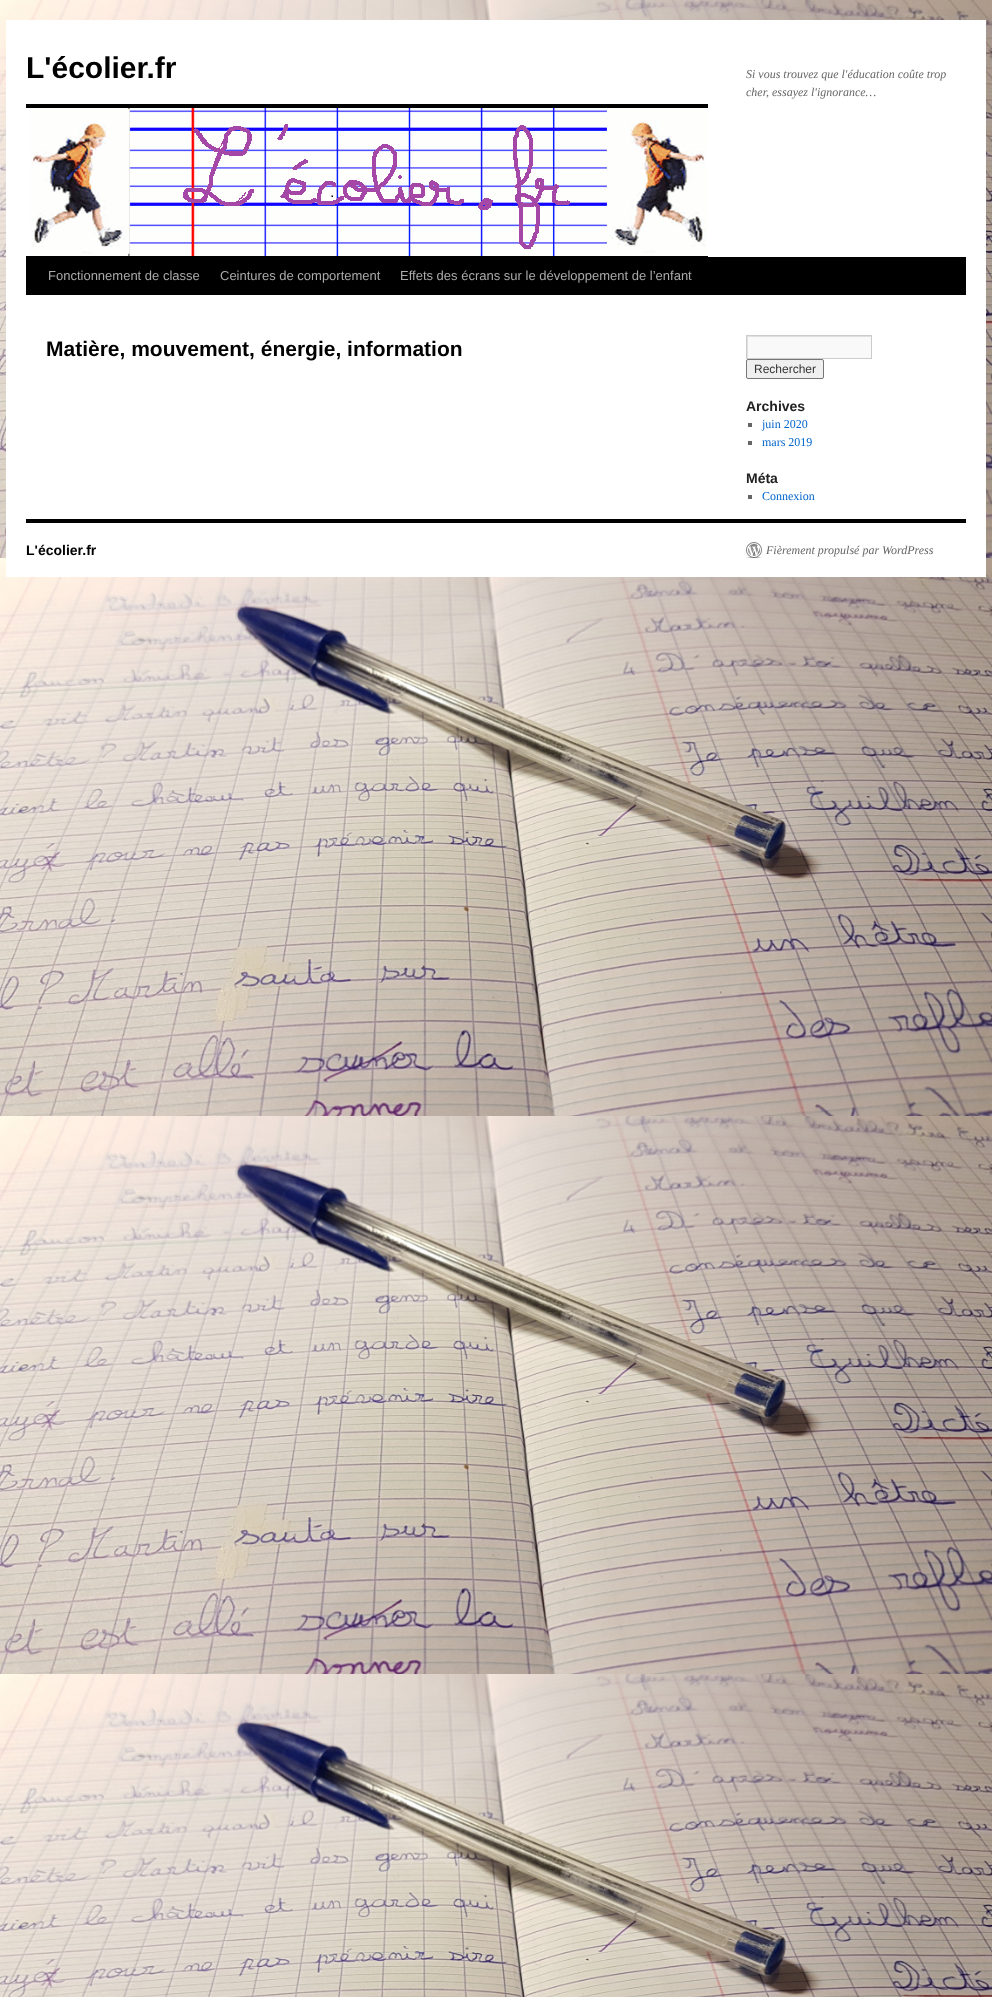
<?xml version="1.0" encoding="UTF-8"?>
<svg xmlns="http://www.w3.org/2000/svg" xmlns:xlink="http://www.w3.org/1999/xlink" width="992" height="1997">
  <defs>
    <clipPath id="clip1"><rect x="747" y="336" width="124" height="22" /></clipPath>
  </defs>
  <rect width="100%" height="100%" fill="#ffffff" />
  <image x="0" y="0" width="992" height="1997" xlink:href="image1.png" />
  <rect x="6" y="20" width="980" height="557" fill="#ffffff" />
  <rect x="26" y="104" width="682" height="4" fill="#000000" />
  <rect x="26" y="256" width="682" height="1" fill="#000000" />
  <image x="30" y="108" width="677" height="148" xlink:href="image2.png" />
  <rect x="26" y="257" width="940" height="38" fill="#000000" />
  <rect x="748" y="337" width="123" height="21" fill="#f9f9f9" />
  <g clip-path="url(#clip1)">
    <path d="M 648 237 h 322 v 220 h -322 z m 100 100 h 124 v 22 h -124 z" fill="#e0e0e0" fill-rule="evenodd" />
  </g>
  <rect x="746.5" y="335.5" width="125" height="23" fill="none" stroke="#cccccc" />
  <rect x="746.5" y="359.5" width="77" height="19" rx="1.5" fill="#efefef" stroke="#767676" />
  <rect x="748" y="423" width="4" height="4" fill="#666666" />
  <rect x="748" y="441" width="4" height="4" fill="#666666" />
  <rect x="748" y="495" width="4" height="4" fill="#666666" />
  <rect x="26" y="519" width="940" height="4" fill="#000000" />
  <image x="746" y="542" width="16" height="16" xlink:href="image3.png" />
  <text x="26" y="78" style="font-family: Liberation Sans; font-size: 30px; font-weight: bold; fill: #000000">L'écolier.fr</text>
  <text x="746" y="78" style="font-family: Liberation Serif; font-size: 12px; font-style: italic; fill: #666666">Si vous trouvez que l'éducation coûte trop</text>
  <text x="746" y="96" style="font-family: Liberation Serif; font-size: 12px; font-style: italic; fill: #666666">cher, essayez l'ignorance…</text>
  <text x="48" y="280" style="font-family: Liberation Sans; font-size: 13px; fill: #aaaaaa">Fonctionnement de classe</text>
  <text x="220" y="280" style="font-family: Liberation Sans; font-size: 13px; fill: #aaaaaa">Ceintures de comportement</text>
  <text x="400" y="280" style="font-family: Liberation Sans; font-size: 13px; fill: #aaaaaa">Effets des écrans sur le développement de l’enfant</text>
  <text x="46" y="356" style="font-family: Liberation Sans; font-size: 21px; font-weight: bold; fill: #000000">Matière, mouvement, énergie, information</text>
  <text x="754" y="373" style="font-family: Liberation Sans; font-size: 12px; fill: #333333">Rechercher</text>
  <text x="746" y="411" style="font-family: Liberation Sans; font-size: 14px; font-weight: bold; fill: #222222">Archives</text>
  <text x="762" y="428" style="font-family: Liberation Serif; font-size: 12px; fill: #0066cc">juin 2020</text>
  <text x="762" y="446" style="font-family: Liberation Serif; font-size: 12px; fill: #0066cc">mars 2019</text>
  <text x="746" y="483" style="font-family: Liberation Sans; font-size: 14px; font-weight: bold; fill: #222222">Méta</text>
  <text x="762" y="500" style="font-family: Liberation Serif; font-size: 12px; fill: #0066cc">Connexion</text>
  <text x="26" y="555" style="font-family: Liberation Sans; font-size: 14px; font-weight: bold; fill: #000000">L'écolier.fr</text>
  <text x="766" y="554" style="font-family: Liberation Serif; font-size: 12px; font-style: italic; fill: #666666">Fièrement propulsé par WordPress</text>
</svg>
